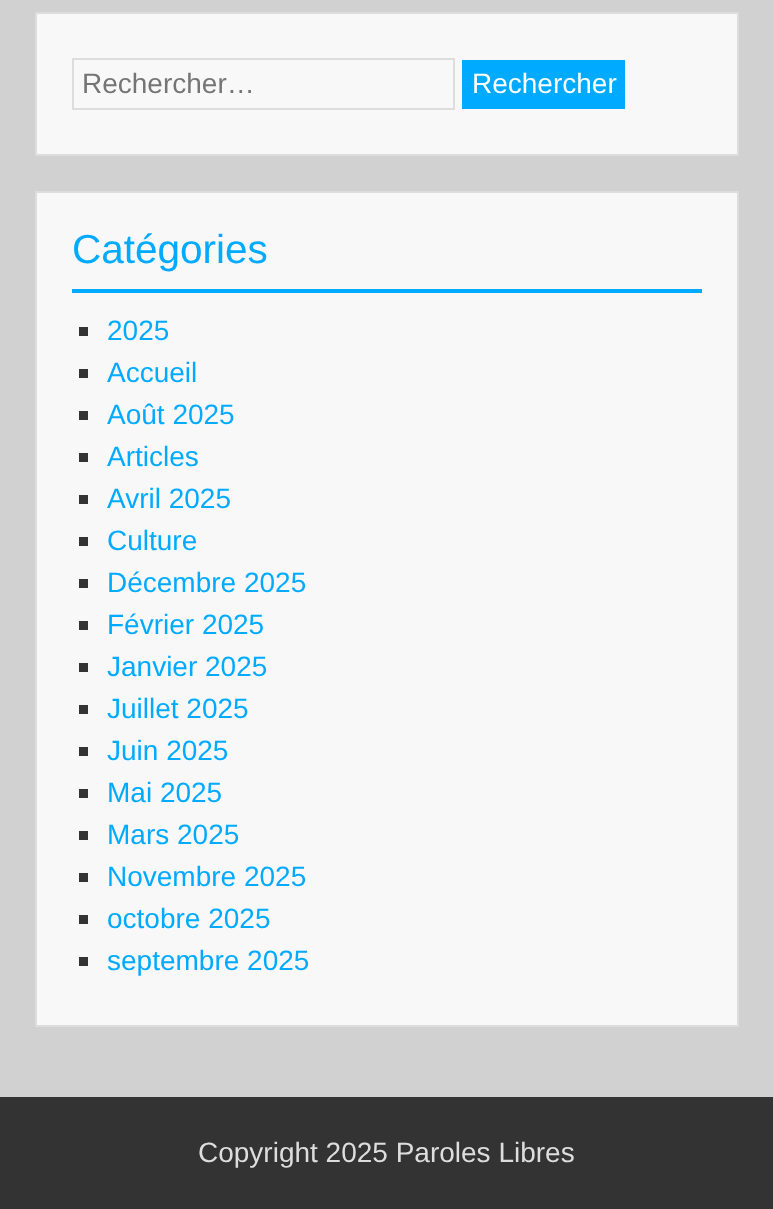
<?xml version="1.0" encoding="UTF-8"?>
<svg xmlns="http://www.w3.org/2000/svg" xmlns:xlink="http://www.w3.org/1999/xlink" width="773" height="1209">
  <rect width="100%" height="100%" fill="#d1d1d1" />
  <rect x="36" y="13" width="702" height="142" fill="#f8f8f8" stroke="#dddddd" stroke-width="2" />
  <rect x="73" y="59" width="381" height="50" fill="none" stroke="#dddddd" stroke-width="2" />
  <rect x="462" y="60" width="163" height="49" fill="#00aaff" />
  <rect x="36" y="192" width="702" height="834" fill="#f8f8f8" stroke="#dddddd" stroke-width="2" />
  <rect x="72" y="289" width="630" height="4" fill="#00aaff" />
  <rect x="79" y="327" width="9" height="9" fill="#333333" />
  <rect x="79" y="369" width="9" height="9" fill="#333333" />
  <rect x="79" y="411" width="9" height="9" fill="#333333" />
  <rect x="79" y="453" width="9" height="9" fill="#333333" />
  <rect x="79" y="495" width="9" height="9" fill="#333333" />
  <rect x="79" y="537" width="9" height="9" fill="#333333" />
  <rect x="79" y="579" width="9" height="9" fill="#333333" />
  <rect x="79" y="621" width="9" height="9" fill="#333333" />
  <rect x="79" y="663" width="9" height="9" fill="#333333" />
  <rect x="79" y="705" width="9" height="9" fill="#333333" />
  <rect x="79" y="747" width="9" height="9" fill="#333333" />
  <rect x="79" y="789" width="9" height="9" fill="#333333" />
  <rect x="79" y="831" width="9" height="9" fill="#333333" />
  <rect x="79" y="873" width="9" height="9" fill="#333333" />
  <rect x="79" y="915" width="9" height="9" fill="#333333" />
  <rect x="79" y="957" width="9" height="9" fill="#333333" />
  <rect y="1097" width="773" height="112" fill="#333333" />
  <text x="82" y="93" style="font-family: Liberation Sans; font-size: 28px; fill: #757575">Rechercher…</text>
  <text x="472" y="93" style="font-family: Liberation Sans; font-size: 28px; fill: #ffffff">Rechercher</text>
  <text x="72" y="263" style="font-family: Liberation Sans; font-size: 40.5px; fill: #00aaff">Catégories</text>
  <text x="107" y="340" style="font-family: Liberation Sans; font-size: 28px; fill: #00aaff">2025</text>
  <text x="107" y="382" style="font-family: Liberation Sans; font-size: 28px; fill: #00aaff">Accueil</text>
  <text x="107" y="424" style="font-family: Liberation Sans; font-size: 28px; fill: #00aaff">Août 2025</text>
  <text x="107" y="466" style="font-family: Liberation Sans; font-size: 28px; fill: #00aaff">Articles</text>
  <text x="107" y="508" style="font-family: Liberation Sans; font-size: 28px; fill: #00aaff">Avril 2025</text>
  <text x="107" y="550" style="font-family: Liberation Sans; font-size: 28px; fill: #00aaff">Culture</text>
  <text x="107" y="592" style="font-family: Liberation Sans; font-size: 28px; fill: #00aaff">Décembre 2025</text>
  <text x="107" y="634" style="font-family: Liberation Sans; font-size: 28px; fill: #00aaff">Février 2025</text>
  <text x="107" y="676" style="font-family: Liberation Sans; font-size: 28px; fill: #00aaff">Janvier 2025</text>
  <text x="107" y="718" style="font-family: Liberation Sans; font-size: 28px; fill: #00aaff">Juillet 2025</text>
  <text x="107" y="760" style="font-family: Liberation Sans; font-size: 28px; fill: #00aaff">Juin 2025</text>
  <text x="107" y="802" style="font-family: Liberation Sans; font-size: 28px; fill: #00aaff">Mai 2025</text>
  <text x="107" y="844" style="font-family: Liberation Sans; font-size: 28px; fill: #00aaff">Mars 2025</text>
  <text x="107" y="886" style="font-family: Liberation Sans; font-size: 28px; fill: #00aaff">Novembre 2025</text>
  <text x="107" y="928" style="font-family: Liberation Sans; font-size: 28px; fill: #00aaff">octobre 2025</text>
  <text x="107" y="970" style="font-family: Liberation Sans; font-size: 28px; fill: #00aaff">septembre 2025</text>
  <text x="198" y="1162" style="font-family: Liberation Sans; font-size: 28px; fill: #dddddd">Copyright 2025 Paroles Libres</text>
</svg>
